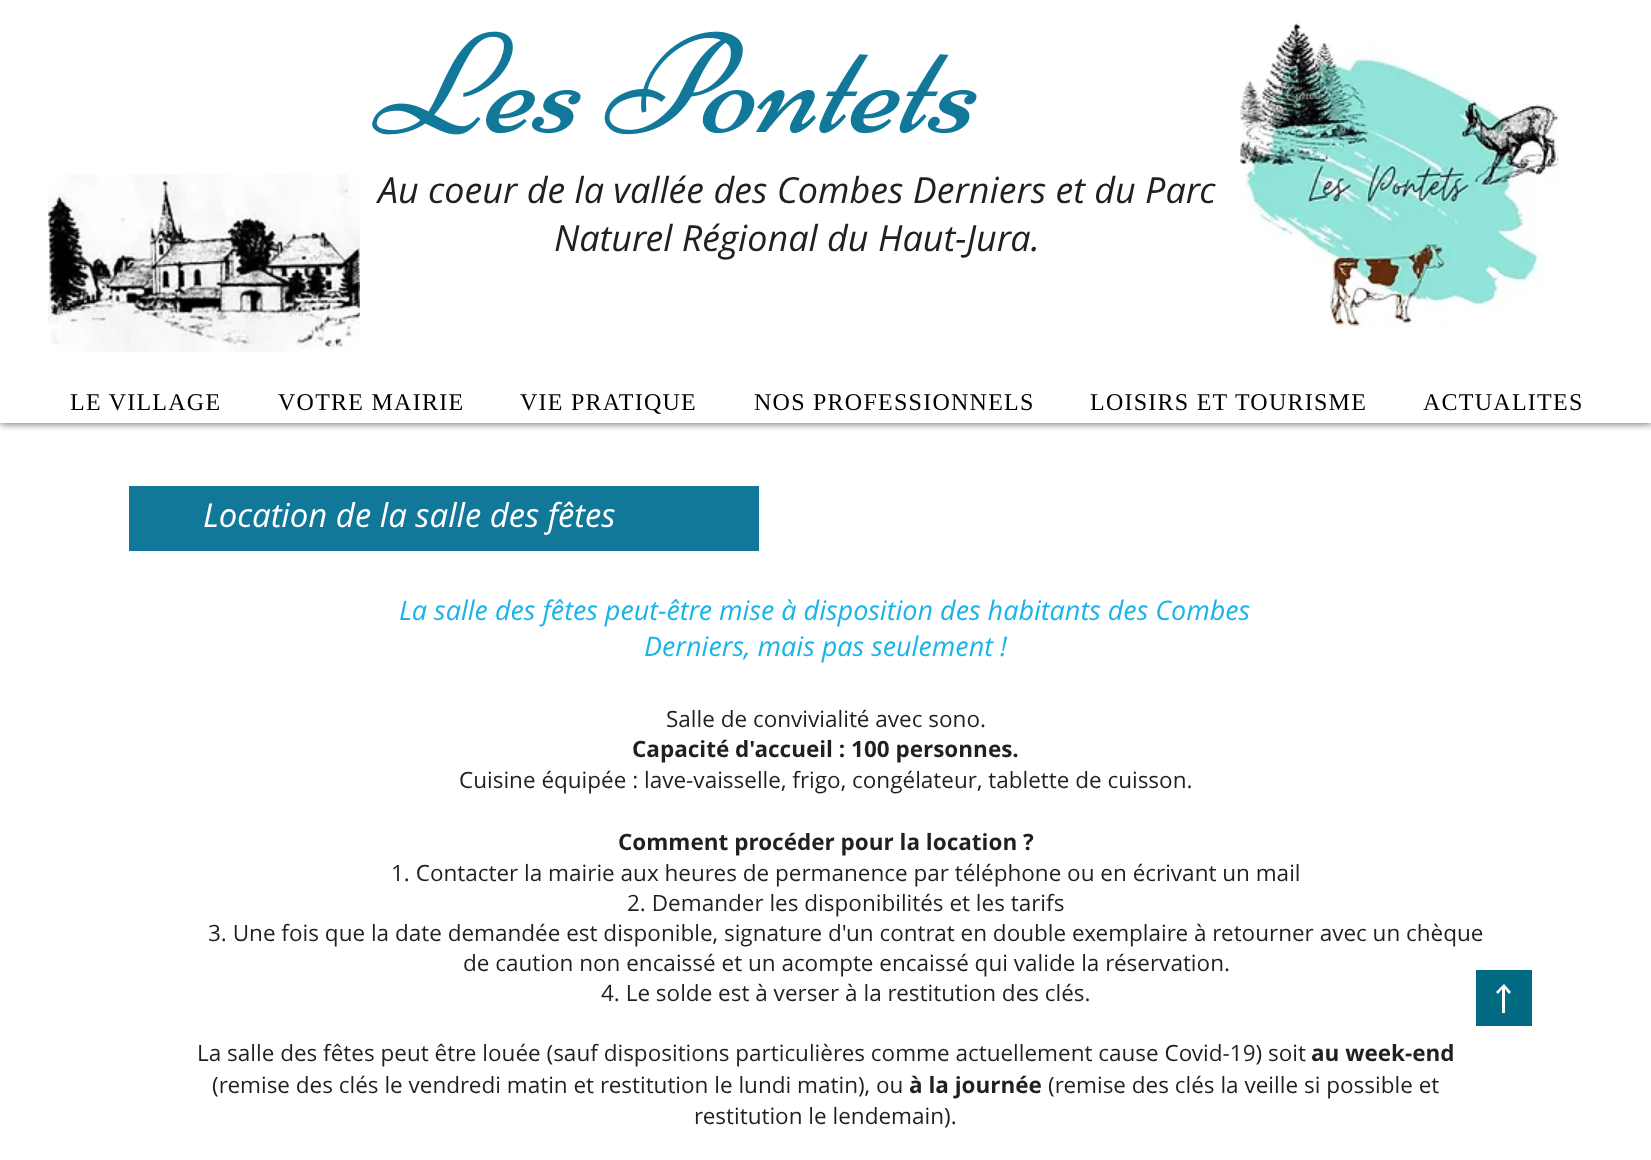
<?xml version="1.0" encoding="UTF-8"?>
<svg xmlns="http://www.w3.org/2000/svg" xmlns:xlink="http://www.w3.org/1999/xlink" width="1651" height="1160">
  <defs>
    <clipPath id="clip1"><rect x="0" y="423" width="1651" height="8" /></clipPath>
  </defs>
  <rect width="100%" height="100%" fill="#ffffff" />
  <g clip-path="url(#clip1)">
    <rect width="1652" height="423" fill="#000000" fill-opacity="0.7" filter="blur(4px)" />
  </g>
  <image x="48" y="174" width="312" height="178" xlink:href="image1.png" />
  <image x="372" y="31" width="605" height="104" xlink:href="image2.png" />
  <image x="1240" y="20" width="319" height="309" xlink:href="image3.png" />
  <rect x="129" y="486" width="630" height="65" fill="#12789a" />
  <path d="M 1476 970 v 56 h 56 v -56 z m 33 24 l -4 -5 v 24 h -3 v -24 l -4 5 l -2 -2 l 8 -8 l 7 8 z" fill="#006b82" />
  <text x="378" y="203" style="font-family: Open Sans; font-size: 36px; font-style: italic; fill: #1d2123">Au coeur de la vallée des Combes Derniers et du Parc</text>
  <text x="554" y="251" style="font-family: Open Sans; font-size: 36px; font-style: italic; fill: #1d2123">Naturel Régional du Haut-Jura.</text>
  <text x="70" y="410" style="font-family: Liberation Serif; font-size: 24px; letter-spacing: 1.25px; fill: #000000">LE VILLAGE</text>
  <text x="278" y="410" style="font-family: Liberation Serif; font-size: 24px; letter-spacing: 1.25px; fill: #000000">VOTRE MAIRIE</text>
  <text x="520" y="410" style="font-family: Liberation Serif; font-size: 24px; letter-spacing: 1.25px; fill: #000000">VIE PRATIQUE</text>
  <text x="754" y="410" style="font-family: Liberation Serif; font-size: 24px; letter-spacing: 1.25px; fill: #000000">NOS PROFESSIONNELS</text>
  <text x="1090" y="410" style="font-family: Liberation Serif; font-size: 24px; letter-spacing: 1.25px; fill: #000000">LOISIRS ET TOURISME</text>
  <text x="1423" y="410" style="font-family: Liberation Serif; font-size: 24px; letter-spacing: 1.25px; fill: #000000">ACTUALITES</text>
  <text x="203" y="527" style="font-family: Open Sans; font-size: 33px; font-style: italic; fill: #ffffff">Location de la salle des fêtes</text>
  <text x="399" y="620" style="font-family: Open Sans; font-size: 27px; font-style: italic; fill: #1bb4e8">La salle des fêtes peut-être mise à disposition des habitants des Combes</text>
  <text x="644" y="656" style="font-family: Open Sans; font-size: 27px; font-style: italic; fill: #1bb4e8">Derniers, mais pas seulement !</text>
  <text x="666" y="727" style="font-family: Open Sans; font-size: 22.5px; fill: #1d2123">Salle de convivialité avec sono.</text>
  <text x="632" y="757" style="font-family: Open Sans; font-size: 22.5px; font-weight: bold; fill: #1d2123">Capacité d'accueil : 100 personnes.</text>
  <text x="459" y="788" style="font-family: Open Sans; font-size: 22.5px; fill: #1d2123">Cuisine équipée : lave-vaisselle, frigo, congélateur, tablette de cuisson.</text>
  <text x="618" y="850" style="font-family: Open Sans; font-size: 22.5px; font-weight: bold; fill: #1d2123">Comment procéder pour la location ?</text>
  <text x="391" y="881" style="font-family: Open Sans; font-size: 22.5px; fill: #1d2123">1. Contacter la mairie aux heures de permanence par téléphone ou en écrivant un mail</text>
  <text x="627" y="911" style="font-family: Open Sans; font-size: 22.5px; fill: #1d2123">2. Demander les disponibilités et les tarifs</text>
  <text x="208" y="941" style="font-family: Open Sans; font-size: 22.5px; fill: #1d2123">3. Une fois que la date demandée est disponible, signature d'un contrat en double exemplaire à retourner avec un chèque</text>
  <text x="463" y="971" style="font-family: Open Sans; font-size: 22.5px; fill: #1d2123">de caution non encaissé et un acompte encaissé qui valide la réservation.</text>
  <text x="601" y="1001" style="font-family: Open Sans; font-size: 22.5px; fill: #1d2123">4. Le solde est à verser à la restitution des clés.</text>
  <text x="197" y="1061" style="font-family: Open Sans; font-size: 22.5px; fill: #1d2123">La salle des fêtes peut être louée (sauf dispositions particulières comme actuellement cause Covid-19) soit</text>
  <text x="1311" y="1061" style="font-family: Open Sans; font-size: 22.5px; font-weight: bold; fill: #1d2123">au week-end</text>
  <text x="212" y="1093" style="font-family: Open Sans; font-size: 22.5px; fill: #1d2123">(remise des clés le vendredi matin et restitution le lundi matin), ou</text>
  <text x="909" y="1093" style="font-family: Open Sans; font-size: 22.5px; font-weight: bold; fill: #1d2123">à la journée</text>
  <text x="1048" y="1093" style="font-family: Open Sans; font-size: 22.5px; fill: #1d2123">(remise des clés la veille si possible et</text>
  <text x="694" y="1124" style="font-family: Open Sans; font-size: 22.5px; fill: #1d2123">restitution le lendemain).</text>
</svg>
